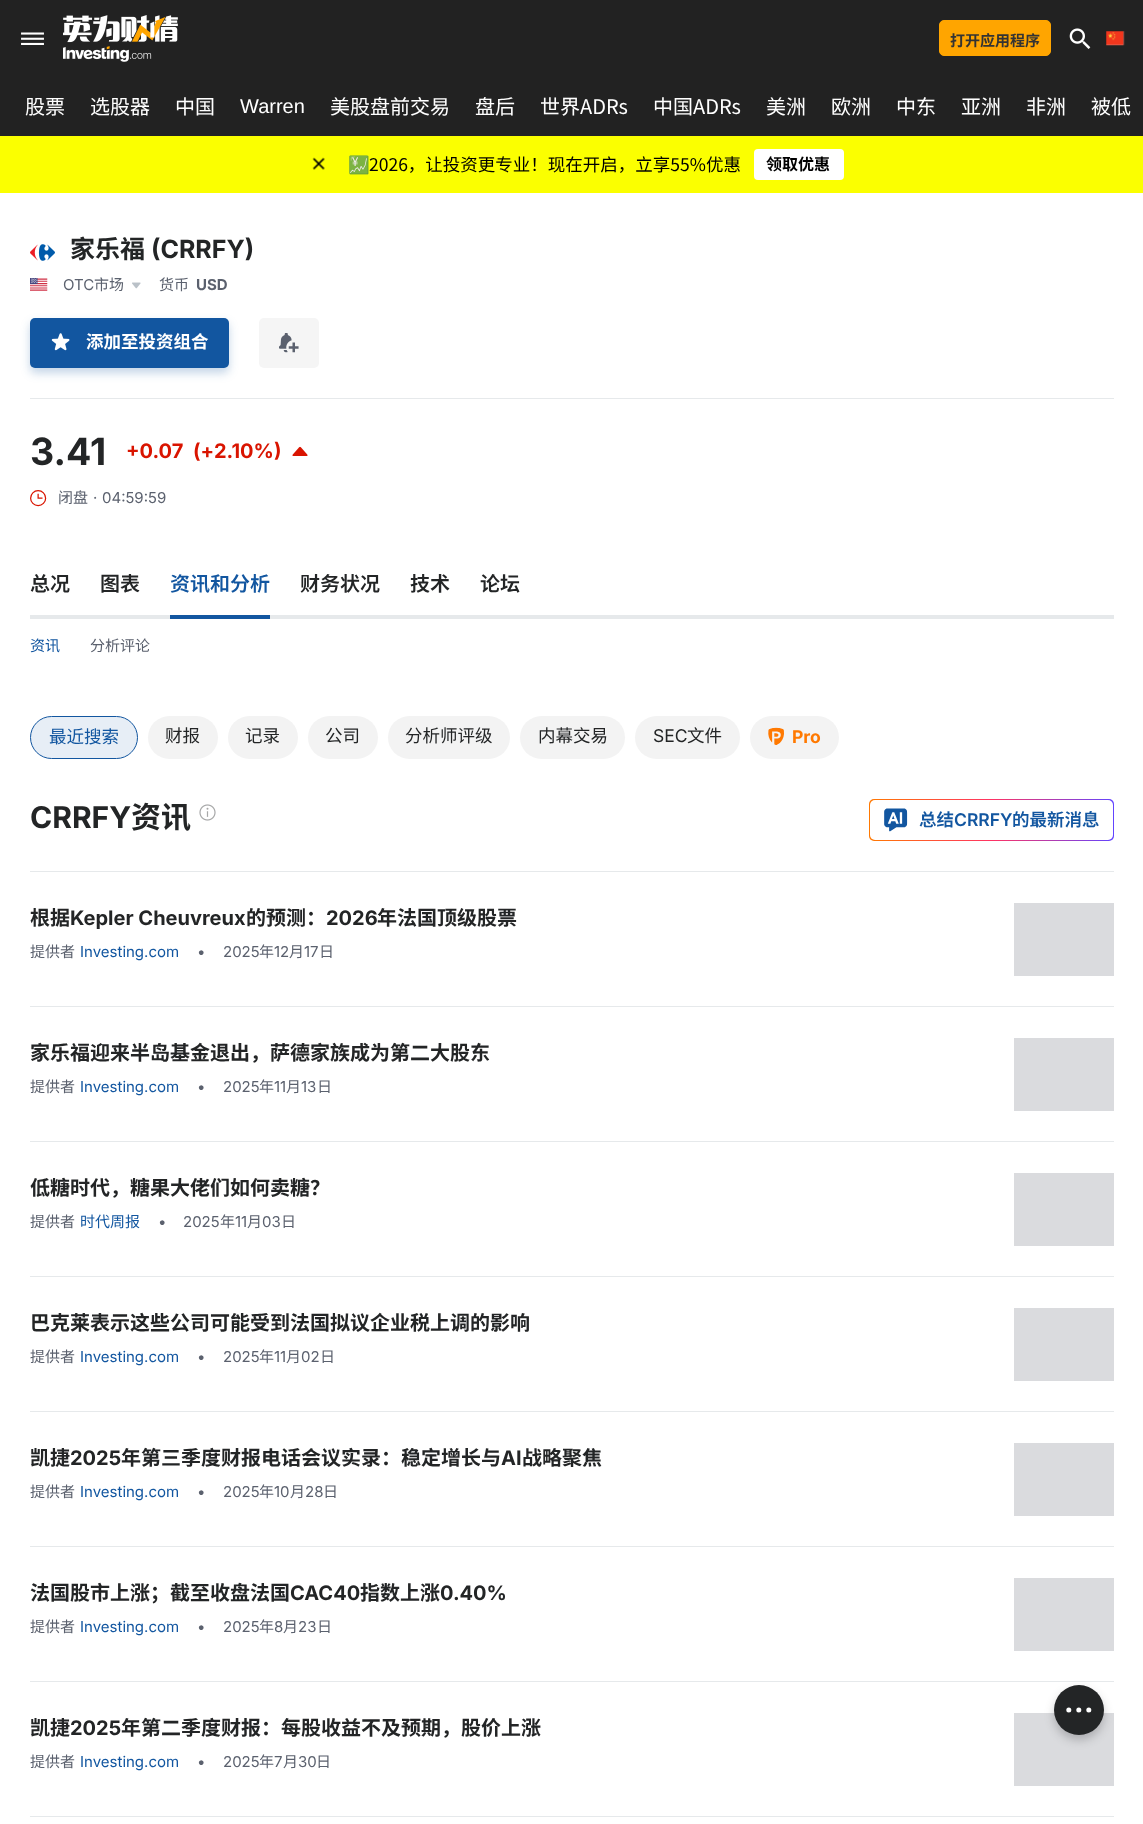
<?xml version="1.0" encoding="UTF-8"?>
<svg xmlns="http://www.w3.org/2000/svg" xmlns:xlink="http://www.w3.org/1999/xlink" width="1143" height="1824">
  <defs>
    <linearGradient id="g1" gradientUnits="userSpaceOnUse" x1="869" y1="820" x2="1114" y2="820"><stop offset="0" stop-color="#ff7901" /><stop offset="0.5" stop-color="#ff3363" /><stop offset="1" stop-color="#6244ff" /></linearGradient>
  </defs>
  <rect width="100%" height="100%" fill="#ffffff" />
  <rect width="1143" height="136" fill="#222222" />
  <image x="21" y="32" width="23" height="13" xlink:href="image1.png" />
  <image x="63" y="15" width="115" height="47" xlink:href="image2.png" />
  <rect x="939.5" y="20.5" width="111" height="35" rx="4.5" fill="#ffa500" stroke="#ffa500" />
  <image x="1069" y="28" width="22" height="21" xlink:href="image3.png" />
  <image x="1106" y="31" width="19" height="15" xlink:href="image4.png" />
  <rect y="136" width="1143" height="57" fill="#fbff00" />
  <image x="312" y="157" width="13" height="13" xlink:href="image5.png" />
  <rect x="754" y="149" width="90" height="31" rx="4" fill="#ffffff" />
  <image x="30" y="244" width="25" height="17" xlink:href="image6.png" />
  <image x="30" y="278" width="18" height="13" xlink:href="image7.png" />
  <image x="132" y="282" width="9" height="7" xlink:href="image8.png" />
  <rect x="30" y="323" width="199" height="50" rx="5" fill="#1256a0" fill-opacity="0.25" filter="blur(5px)" />
  <rect x="30" y="318" width="199" height="50" rx="5" fill="#1256a0" />
  <image x="51" y="333" width="19" height="18" xlink:href="image9.png" />
  <rect x="259" y="318" width="60" height="50" rx="5" fill="#f5f5f5" />
  <image x="279" y="333" width="20" height="20" xlink:href="image10.png" />
  <rect x="30" y="398" width="1084" height="1" fill="#e6e9eb" />
  <image x="292" y="446" width="16" height="10" xlink:href="image11.png" />
  <image x="30" y="490" width="17" height="17" xlink:href="image12.png" />
  <rect x="30" y="615" width="1084" height="4" fill="#e6e9eb" />
  <rect x="170" y="615" width="100" height="4" fill="#1256a0" />
  <rect x="30.5" y="716.5" width="107" height="42" rx="21" fill="#e7eef6" stroke="#1256a0" />
  <rect x="148" y="716" width="70" height="43" rx="21.5" fill="#f3f3f3" />
  <rect x="228" y="716" width="70" height="43" rx="21.5" fill="#f3f3f3" />
  <rect x="308" y="716" width="70" height="43" rx="21.5" fill="#f3f3f3" />
  <rect x="388" y="716" width="122" height="43" rx="21.5" fill="#f3f3f3" />
  <rect x="520" y="716" width="105" height="43" rx="21.5" fill="#f3f3f3" />
  <rect x="635" y="716" width="105" height="43" rx="21.5" fill="#f3f3f3" />
  <rect x="750" y="716" width="89" height="43" rx="21.5" fill="#f3f3f3" />
  <image x="768" y="727" width="16" height="18" xlink:href="image13.png" />
  <image x="199" y="804" width="17" height="17" xlink:href="image14.png" />
  <rect x="869" y="799" width="245" height="42" rx="5" fill="url(#g1)" />
  <rect x="870" y="800" width="243" height="40" rx="5" fill="#ffffff" />
  <image x="884" y="808" width="24" height="24" xlink:href="image15.png" />
  <rect x="30" y="871" width="1084" height="1" fill="#e6e9eb" />
  <rect x="30" y="1006" width="1084" height="1" fill="#e6e9eb" />
  <rect x="1014" y="903" width="100" height="73" fill="#dadbde" />
  <rect x="30" y="1141" width="1084" height="1" fill="#e6e9eb" />
  <rect x="1014" y="1038" width="100" height="73" fill="#dadbde" />
  <rect x="30" y="1276" width="1084" height="1" fill="#e6e9eb" />
  <rect x="1014" y="1173" width="100" height="73" fill="#dadbde" />
  <rect x="30" y="1411" width="1084" height="1" fill="#e6e9eb" />
  <rect x="1014" y="1308" width="100" height="73" fill="#dadbde" />
  <rect x="30" y="1546" width="1084" height="1" fill="#e6e9eb" />
  <rect x="1014" y="1443" width="100" height="73" fill="#dadbde" />
  <rect x="30" y="1681" width="1084" height="1" fill="#e6e9eb" />
  <rect x="1014" y="1578" width="100" height="73" fill="#dadbde" />
  <rect x="30" y="1816" width="1084" height="1" fill="#e6e9eb" />
  <rect x="1014" y="1713" width="100" height="73" fill="#dadbde" />
  <rect x="1054" y="1690" width="50" height="50" rx="25" fill="#232526" fill-opacity="0.25" filter="blur(5px)" />
  <circle cx="1079" cy="1710" r="25" fill="#232526" />
  <circle cx="1088.8" cy="1710" r="2.5" fill="#ffffff" />
  <circle cx="1068.8" cy="1710" r="2.5" fill="#ffffff" />
  <circle cx="1078.8" cy="1710" r="2.5" fill="#ffffff" />
  <text x="950" y="46" style="font-family: Noto Sans SC; font-size: 15px; font-weight: bold; fill: #333333">打开应用程序</text>
  <text x="25" y="114" style="font-family: Noto Sans SC; font-size: 20px; fill: #ffffff">股票</text>
  <text x="90" y="114" style="font-family: Noto Sans SC; font-size: 20px; fill: #ffffff">选股器</text>
  <text x="175" y="114" style="font-family: Noto Sans SC; font-size: 20px; fill: #ffffff">中国</text>
  <text x="240" y="113" style="font-family: Liberation Sans; font-size: 20px; fill: #ffffff">Warren</text>
  <text x="330" y="114" style="font-family: Noto Sans SC; font-size: 20px; fill: #ffffff">美股盘前交易</text>
  <text x="475" y="114" style="font-family: Noto Sans SC; font-size: 20px; fill: #ffffff">盘后</text>
  <text x="540" y="114" style="font-family: Noto Sans SC; font-size: 20px; fill: #ffffff">世界ADRs</text>
  <text x="653" y="114" style="font-family: Noto Sans SC; font-size: 20px; fill: #ffffff">中国ADRs</text>
  <text x="766" y="114" style="font-family: Noto Sans SC; font-size: 20px; fill: #ffffff">美洲</text>
  <text x="831" y="114" style="font-family: Noto Sans SC; font-size: 20px; fill: #ffffff">欧洲</text>
  <text x="896" y="114" style="font-family: Noto Sans SC; font-size: 20px; fill: #ffffff">中东</text>
  <text x="961" y="114" style="font-family: Noto Sans SC; font-size: 20px; fill: #ffffff">亚洲</text>
  <text x="1026" y="114" style="font-family: Noto Sans SC; font-size: 20px; fill: #ffffff">非洲</text>
  <text x="1091" y="114" style="font-family: Noto Sans SC; font-size: 20px; fill: #ffffff">被低</text>
  <text x="348" y="171" style="font-family: Noto Color Emoji; font-size: 17.5px; fill: #000000">💹</text>
  <text x="369" y="171" style="font-family: Noto Sans SC; font-size: 17.5px; fill: #000000">2026，让投资更专业！现在开启，立享55%优惠</text>
  <text x="766" y="170" style="font-family: Noto Sans SC; font-size: 16px; font-weight: bold; fill: #000000">领取优惠</text>
  <text x="70" y="258" style="font-family: Noto Sans SC; font-size: 25px; font-weight: bold; fill: #232526">家乐福</text>
  <text x="151" y="258" style="font-family: Inter; font-size: 25px; font-weight: bold; fill: #232526">(CRRFY)</text>
  <text x="63" y="290" style="font-family: Inter; font-size: 15px; fill: #5b616e">OTC</text>
  <text x="94" y="290" style="font-family: Noto Sans SC; font-size: 15px; fill: #5b616e">市场</text>
  <text x="159" y="290" style="font-family: Noto Sans SC; font-size: 15px; fill: #5b616e">货币</text>
  <text x="196" y="290" style="font-family: Inter; font-size: 15px; font-weight: bold; fill: #5b616e">USD</text>
  <text x="86" y="348" style="font-family: Noto Sans SC; font-size: 17.5px; font-weight: bold; fill: #ffffff">添加至投资组合</text>
  <text x="30" y="465" style="font-family: Inter; font-size: 37.5px; font-weight: bold; fill: #232526">3.41</text>
  <text x="126" y="458" style="font-family: Inter; font-size: 20px; font-weight: bold; fill: #d91400">+0.07</text>
  <text x="193" y="458" style="font-family: Inter; font-size: 20px; font-weight: bold; fill: #d91400">(+</text>
  <text x="214" y="458" style="font-family: Inter; font-size: 20px; font-weight: bold; fill: #d91400">2.10%)</text>
  <text x="58" y="503" style="font-family: Noto Sans SC; font-size: 15px; fill: #5b616e">闭盘</text>
  <text x="93" y="503" style="font-family: Inter; font-size: 15px; fill: #5b616e">·</text>
  <text x="102" y="503" style="font-family: Inter; font-size: 15px; fill: #5b616e">04:59:59</text>
  <text x="30" y="591" style="font-family: Noto Sans SC; font-size: 20px; font-weight: 600; fill: #232526">总况</text>
  <text x="100" y="591" style="font-family: Noto Sans SC; font-size: 20px; font-weight: 600; fill: #232526">图表</text>
  <text x="170" y="591" style="font-family: Noto Sans SC; font-size: 20px; font-weight: 600; fill: #1256a0">资讯和分析</text>
  <text x="300" y="591" style="font-family: Noto Sans SC; font-size: 20px; font-weight: 600; fill: #232526">财务状况</text>
  <text x="410" y="591" style="font-family: Noto Sans SC; font-size: 20px; font-weight: 600; fill: #232526">技术</text>
  <text x="480" y="591" style="font-family: Noto Sans SC; font-size: 20px; font-weight: 600; fill: #232526">论坛</text>
  <text x="30" y="651" style="font-family: Noto Sans SC; font-size: 15px; fill: #1256a0">资讯</text>
  <text x="90" y="651" style="font-family: Noto Sans SC; font-size: 15px; fill: #5b616e">分析评论</text>
  <text x="49" y="743" style="font-family: Noto Sans SC; font-size: 17.5px; fill: #1256a0">最近搜索</text>
  <text x="165" y="742" style="font-family: Noto Sans SC; font-size: 17.5px; fill: #232526">财报</text>
  <text x="245" y="742" style="font-family: Noto Sans SC; font-size: 17.5px; fill: #232526">记录</text>
  <text x="325" y="742" style="font-family: Noto Sans SC; font-size: 17.5px; fill: #232526">公司</text>
  <text x="405" y="742" style="font-family: Noto Sans SC; font-size: 17.5px; fill: #232526">分析师评级</text>
  <text x="538" y="742" style="font-family: Noto Sans SC; font-size: 17.5px; fill: #232526">内幕交易</text>
  <text x="653" y="742" style="font-family: Inter; font-size: 17.5px; fill: #232526">SEC</text>
  <text x="687" y="742" style="font-family: Noto Sans SC; font-size: 17.5px; fill: #232526">文件</text>
  <text x="792" y="743" style="font-family: Inter; font-size: 17.5px; font-weight: bold; fill: #ff7901">Pro</text>
  <text x="30" y="828" style="font-family: Inter; font-size: 30px; font-weight: bold; fill: #232526">CRRFY</text>
  <text x="131" y="828" style="font-family: Noto Sans SC; font-size: 30px; font-weight: bold; fill: #232526">资讯</text>
  <text x="919" y="826" style="font-family: Noto Sans SC; font-size: 17.5px; font-weight: 600; fill: #1256a0">总结</text>
  <text x="954" y="826" style="font-family: Inter; font-size: 17.5px; font-weight: 600; fill: #1256a0">CRRFY</text>
  <text x="1012" y="826" style="font-family: Noto Sans SC; font-size: 17.5px; font-weight: 600; fill: #1256a0">的最新消息</text>
  <text x="30" y="925" style="font-family: Noto Sans SC; font-size: 20px; font-weight: bold; fill: #232526">根据</text>
  <text x="70" y="925" style="font-family: Inter; font-size: 20px; font-weight: bold; fill: #232526">Kepler Cheuvreux</text>
  <text x="246" y="925" style="font-family: Noto Sans SC; font-size: 20px; font-weight: bold; fill: #232526">的预测：</text>
  <text x="326" y="925" style="font-family: Inter; font-size: 20px; font-weight: bold; fill: #232526">2026</text>
  <text x="377" y="925" style="font-family: Noto Sans SC; font-size: 20px; font-weight: bold; fill: #232526">年法国顶级股票</text>
  <text x="30" y="957" style="font-family: Noto Sans SC; font-size: 15px; fill: #5b616e">提供者</text>
  <text x="80" y="957" style="font-family: Inter; font-size: 15px; fill: #1256a0">Investing.com</text>
  <text x="197" y="957" style="font-family: Inter; font-size: 15px; fill: #5b616e">•</text>
  <text x="223" y="957" style="font-family: Inter; font-size: 15px; fill: #5b616e">2025</text>
  <text x="259" y="957" style="font-family: Noto Sans SC; font-size: 15px; fill: #5b616e">年</text>
  <text x="274" y="957" style="font-family: Inter; font-size: 15px; fill: #5b616e">12</text>
  <text x="289" y="957" style="font-family: Noto Sans SC; font-size: 15px; fill: #5b616e">月</text>
  <text x="304" y="957" style="font-family: Inter; font-size: 15px; fill: #5b616e">17</text>
  <text x="319" y="957" style="font-family: Noto Sans SC; font-size: 15px; fill: #5b616e">日</text>
  <text x="30" y="1060" style="font-family: Noto Sans SC; font-size: 20px; font-weight: bold; fill: #232526">家乐福迎来半岛基金退出，萨德家族成为第二大股东</text>
  <text x="30" y="1092" style="font-family: Noto Sans SC; font-size: 15px; fill: #5b616e">提供者</text>
  <text x="80" y="1092" style="font-family: Inter; font-size: 15px; fill: #1256a0">Investing.com</text>
  <text x="197" y="1092" style="font-family: Inter; font-size: 15px; fill: #5b616e">•</text>
  <text x="223" y="1092" style="font-family: Inter; font-size: 15px; fill: #5b616e">2025</text>
  <text x="259" y="1092" style="font-family: Noto Sans SC; font-size: 15px; fill: #5b616e">年</text>
  <text x="274" y="1092" style="font-family: Inter; font-size: 15px; fill: #5b616e">11</text>
  <text x="286" y="1092" style="font-family: Noto Sans SC; font-size: 15px; fill: #5b616e">月</text>
  <text x="301" y="1092" style="font-family: Inter; font-size: 15px; fill: #5b616e">13</text>
  <text x="317" y="1092" style="font-family: Noto Sans SC; font-size: 15px; fill: #5b616e">日</text>
  <text x="30" y="1195" style="font-family: Noto Sans SC; font-size: 20px; font-weight: bold; fill: #232526">低糖时代，糖果大佬们如何卖糖？</text>
  <text x="30" y="1227" style="font-family: Noto Sans SC; font-size: 15px; fill: #5b616e">提供者</text>
  <text x="80" y="1227" style="font-family: Noto Sans SC; font-size: 15px; fill: #1256a0">时代周报</text>
  <text x="158" y="1227" style="font-family: Inter; font-size: 15px; fill: #5b616e">•</text>
  <text x="183" y="1227" style="font-family: Inter; font-size: 15px; fill: #5b616e">2025</text>
  <text x="220" y="1227" style="font-family: Noto Sans SC; font-size: 15px; fill: #5b616e">年</text>
  <text x="235" y="1227" style="font-family: Inter; font-size: 15px; fill: #5b616e">11</text>
  <text x="247" y="1227" style="font-family: Noto Sans SC; font-size: 15px; fill: #5b616e">月</text>
  <text x="262" y="1227" style="font-family: Inter; font-size: 15px; fill: #5b616e">03</text>
  <text x="281" y="1227" style="font-family: Noto Sans SC; font-size: 15px; fill: #5b616e">日</text>
  <text x="30" y="1330" style="font-family: Noto Sans SC; font-size: 20px; font-weight: bold; fill: #232526">巴克莱表示这些公司可能受到法国拟议企业税上调的影响</text>
  <text x="30" y="1362" style="font-family: Noto Sans SC; font-size: 15px; fill: #5b616e">提供者</text>
  <text x="80" y="1362" style="font-family: Inter; font-size: 15px; fill: #1256a0">Investing.com</text>
  <text x="197" y="1362" style="font-family: Inter; font-size: 15px; fill: #5b616e">•</text>
  <text x="223" y="1362" style="font-family: Inter; font-size: 15px; fill: #5b616e">2025</text>
  <text x="259" y="1362" style="font-family: Noto Sans SC; font-size: 15px; fill: #5b616e">年</text>
  <text x="274" y="1362" style="font-family: Inter; font-size: 15px; fill: #5b616e">11</text>
  <text x="286" y="1362" style="font-family: Noto Sans SC; font-size: 15px; fill: #5b616e">月</text>
  <text x="301" y="1362" style="font-family: Inter; font-size: 15px; fill: #5b616e">02</text>
  <text x="320" y="1362" style="font-family: Noto Sans SC; font-size: 15px; fill: #5b616e">日</text>
  <text x="30" y="1465" style="font-family: Noto Sans SC; font-size: 20px; font-weight: bold; fill: #232526">凯捷</text>
  <text x="70" y="1465" style="font-family: Inter; font-size: 20px; font-weight: bold; fill: #232526">2025</text>
  <text x="121" y="1465" style="font-family: Noto Sans SC; font-size: 20px; font-weight: bold; fill: #232526">年第三季度财报电话会议实录：稳定增长与</text>
  <text x="501" y="1465" style="font-family: Inter; font-size: 20px; font-weight: bold; fill: #232526">AI</text>
  <text x="522" y="1465" style="font-family: Noto Sans SC; font-size: 20px; font-weight: bold; fill: #232526">战略聚焦</text>
  <text x="30" y="1497" style="font-family: Noto Sans SC; font-size: 15px; fill: #5b616e">提供者</text>
  <text x="80" y="1497" style="font-family: Inter; font-size: 15px; fill: #1256a0">Investing.com</text>
  <text x="197" y="1497" style="font-family: Inter; font-size: 15px; fill: #5b616e">•</text>
  <text x="223" y="1497" style="font-family: Inter; font-size: 15px; fill: #5b616e">2025</text>
  <text x="259" y="1497" style="font-family: Noto Sans SC; font-size: 15px; fill: #5b616e">年</text>
  <text x="274" y="1497" style="font-family: Inter; font-size: 15px; fill: #5b616e">10</text>
  <text x="290" y="1497" style="font-family: Noto Sans SC; font-size: 15px; fill: #5b616e">月</text>
  <text x="305" y="1497" style="font-family: Inter; font-size: 15px; fill: #5b616e">28</text>
  <text x="323" y="1497" style="font-family: Noto Sans SC; font-size: 15px; fill: #5b616e">日</text>
  <text x="30" y="1600" style="font-family: Noto Sans SC; font-size: 20px; font-weight: bold; fill: #232526">法国股市上涨；截至收盘法国</text>
  <text x="290" y="1600" style="font-family: Inter; font-size: 20px; font-weight: bold; fill: #232526">CAC40</text>
  <text x="360" y="1600" style="font-family: Noto Sans SC; font-size: 20px; font-weight: bold; fill: #232526">指数上涨</text>
  <text x="440" y="1600" style="font-family: Inter; font-size: 20px; font-weight: bold; fill: #232526">0.40%</text>
  <text x="30" y="1632" style="font-family: Noto Sans SC; font-size: 15px; fill: #5b616e">提供者</text>
  <text x="80" y="1632" style="font-family: Inter; font-size: 15px; fill: #1256a0">Investing.com</text>
  <text x="197" y="1632" style="font-family: Inter; font-size: 15px; fill: #5b616e">•</text>
  <text x="223" y="1632" style="font-family: Inter; font-size: 15px; fill: #5b616e">2025</text>
  <text x="259" y="1632" style="font-family: Noto Sans SC; font-size: 15px; fill: #5b616e">年</text>
  <text x="274" y="1632" style="font-family: Inter; font-size: 15px; fill: #5b616e">8</text>
  <text x="283" y="1632" style="font-family: Noto Sans SC; font-size: 15px; fill: #5b616e">月</text>
  <text x="298" y="1632" style="font-family: Inter; font-size: 15px; fill: #5b616e">23</text>
  <text x="317" y="1632" style="font-family: Noto Sans SC; font-size: 15px; fill: #5b616e">日</text>
  <text x="30" y="1735" style="font-family: Noto Sans SC; font-size: 20px; font-weight: bold; fill: #232526">凯捷</text>
  <text x="70" y="1735" style="font-family: Inter; font-size: 20px; font-weight: bold; fill: #232526">2025</text>
  <text x="121" y="1735" style="font-family: Noto Sans SC; font-size: 20px; font-weight: bold; fill: #232526">年第二季度财报：每股收益不及预期，股价上涨</text>
  <text x="30" y="1767" style="font-family: Noto Sans SC; font-size: 15px; fill: #5b616e">提供者</text>
  <text x="80" y="1767" style="font-family: Inter; font-size: 15px; fill: #1256a0">Investing.com</text>
  <text x="197" y="1767" style="font-family: Inter; font-size: 15px; fill: #5b616e">•</text>
  <text x="223" y="1767" style="font-family: Inter; font-size: 15px; fill: #5b616e">2025</text>
  <text x="259" y="1767" style="font-family: Noto Sans SC; font-size: 15px; fill: #5b616e">年</text>
  <text x="274" y="1767" style="font-family: Inter; font-size: 15px; fill: #5b616e">7</text>
  <text x="283" y="1767" style="font-family: Noto Sans SC; font-size: 15px; fill: #5b616e">月</text>
  <text x="298" y="1767" style="font-family: Inter; font-size: 15px; fill: #5b616e">30</text>
  <text x="316" y="1767" style="font-family: Noto Sans SC; font-size: 15px; fill: #5b616e">日</text>
</svg>
